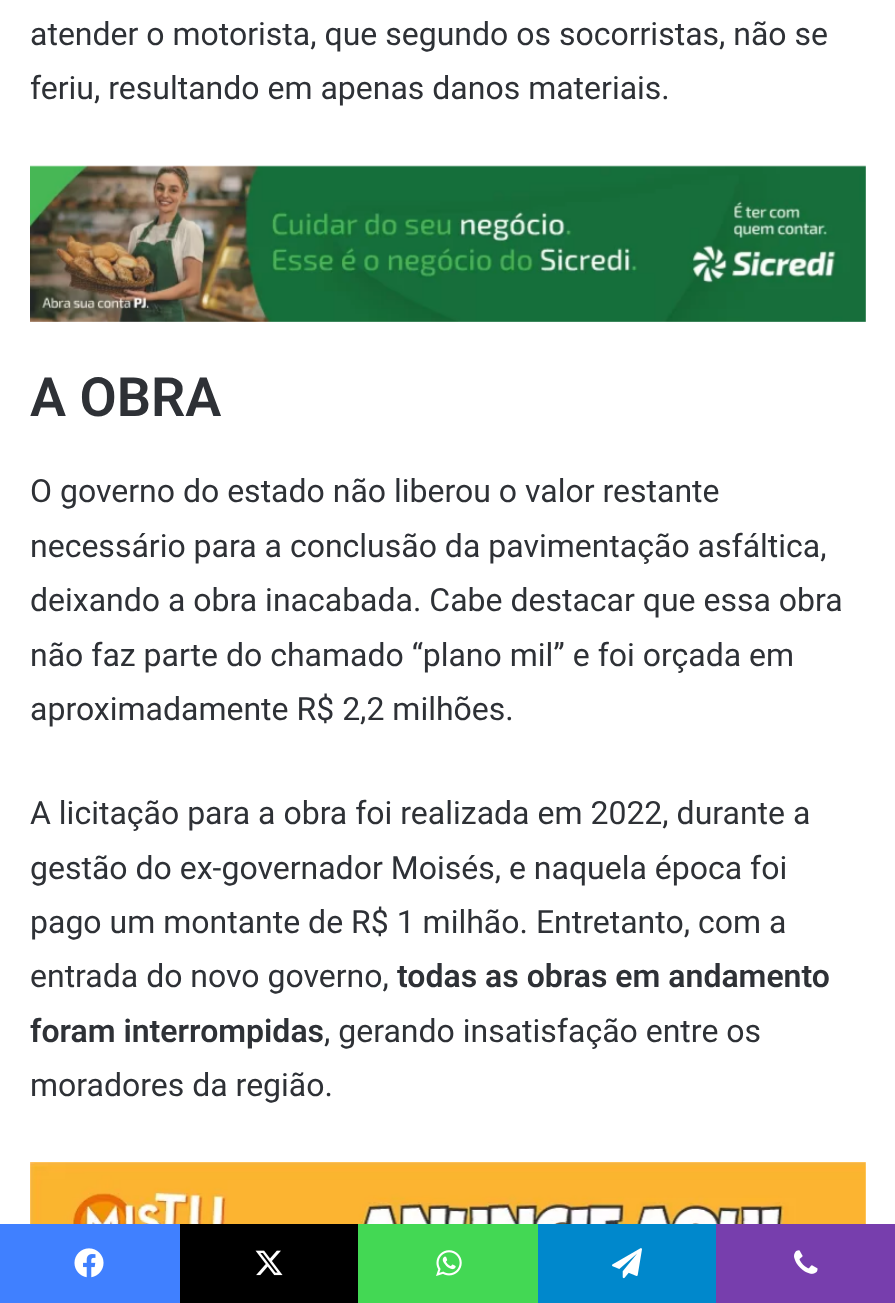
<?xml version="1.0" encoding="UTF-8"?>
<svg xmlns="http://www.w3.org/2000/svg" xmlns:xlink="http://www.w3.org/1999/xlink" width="895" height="1303">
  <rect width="100%" height="100%" fill="#ffffff" />
  <image x="30" y="165" width="836" height="157" xlink:href="image1.png" />
  <image x="30" y="1162" width="836" height="62" xlink:href="image2.png" />
  <rect y="1224" width="180" height="79" fill="#4080ff" />
  <image x="74" y="1248" width="30" height="30" xlink:href="image3.png" />
  <rect x="180" y="1224" width="178" height="79" fill="#000000" />
  <image x="255" y="1250" width="28" height="26" xlink:href="image4.png" />
  <rect x="358" y="1224" width="180" height="79" fill="#43d854" />
  <image x="436" y="1250" width="26" height="26" xlink:href="image5.png" />
  <rect x="538" y="1224" width="178" height="79" fill="#0088cc" />
  <image x="612" y="1248" width="30" height="31" xlink:href="image6.png" />
  <rect x="716" y="1224" width="179" height="79" fill="#773ead" />
  <image x="794" y="1250" width="24" height="24" xlink:href="image7.png" />
  <text x="30" y="45" style="font-family: Roboto; font-size: 32px; fill: #2e3136">atender o motorista, que segundo os socorristas, não se</text>
  <text x="30" y="99" style="font-family: Roboto; font-size: 32px; fill: #2e3136">feriu, resultando em apenas danos materiais.</text>
  <text x="30" y="416" style="font-family: Roboto; font-size: 54px; font-weight: 600; fill: #2e3136">A OBRA</text>
  <text x="30" y="502" style="font-family: Roboto; font-size: 32px; fill: #2e3136">O governo do estado não liberou o valor restante</text>
  <text x="30" y="557" style="font-family: Roboto; font-size: 32px; fill: #2e3136">necessário para a conclusão da pavimentação asfáltica,</text>
  <text x="30" y="611" style="font-family: Roboto; font-size: 32px; fill: #2e3136">deixando a obra inacabada. Cabe destacar que essa obra</text>
  <text x="30" y="666" style="font-family: Roboto; font-size: 32px; fill: #2e3136">não faz parte do chamado “plano mil” e foi orçada em</text>
  <text x="30" y="720" style="font-family: Roboto; font-size: 32px; fill: #2e3136">aproximadamente R$ 2,2 milhões.</text>
  <text x="30" y="824" style="font-family: Roboto; font-size: 32px; fill: #2e3136">A licitação para a obra foi realizada em 2022, durante a</text>
  <text x="30" y="879" style="font-family: Roboto; font-size: 32px; fill: #2e3136">gestão do ex-governador Moisés, e naquela época foi</text>
  <text x="30" y="933" style="font-family: Roboto; font-size: 32px; fill: #2e3136">pago um montante de R$ 1 milhão. Entretanto, com a</text>
  <text x="30" y="987" style="font-family: Roboto; font-size: 32px; fill: #2e3136">entrada do novo governo,</text>
  <text x="397" y="987" style="font-family: Roboto; font-size: 32px; font-weight: 600; fill: #2e3136">todas as obras em andamento</text>
  <text x="30" y="1042" style="font-family: Roboto; font-size: 32px; font-weight: 600; fill: #2e3136">foram interrompidas</text>
  <text x="324" y="1042" style="font-family: Roboto; font-size: 32px; fill: #2e3136">, gerando insatisfação entre os</text>
  <text x="30" y="1096" style="font-family: Roboto; font-size: 32px; fill: #2e3136">moradores da região.</text>
</svg>
